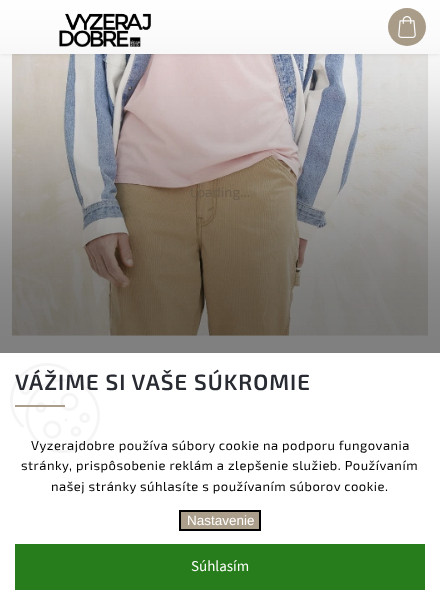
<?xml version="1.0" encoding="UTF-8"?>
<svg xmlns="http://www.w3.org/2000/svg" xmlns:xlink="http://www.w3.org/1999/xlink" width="440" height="613">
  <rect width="100%" height="100%" fill="#ffffff" />
  <image x="11" y="54" width="418" height="283" xlink:href="image3.png" />
  <rect y="-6" width="440" height="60" fill="#000000" fill-opacity="0.1" filter="blur(2.5px)" />
  <rect width="440" height="54" fill="#ffffff" />
  <image x="59" y="13" width="92" height="34" xlink:href="image1.png" />
  <circle cx="407" cy="27" r="19" fill="#ab9e8a" />
  <image x="398" y="16" width="18" height="22" xlink:href="image2.png" />
  <rect x="-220" y="173" width="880" height="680" fill="#000000" fill-opacity="0.5" filter="blur(80px)" />
  <rect y="353" width="440" height="260" fill="#ffffff" />
  <image x="10" y="363" width="90" height="90" xlink:href="image4.png" />
  <rect x="15" y="405" width="50" height="2" fill="#ab9e8a" />
  <rect x="180" y="511" width="80" height="19" fill="#ab9e8a" stroke="#000000" stroke-width="2" />
  <rect x="15" y="544" width="410" height="46" fill="#277c1b" />
  <text x="190" y="197" style="font-family: 'Exo 2'; font-size: 14px; fill: #6a5d4c">Loading...</text>
  <text x="15" y="390" style="font-family: 'Exo 2'; font-size: 22.1px; font-weight: 600; letter-spacing: 1px; fill: #292b32">VÁŽIME SI VAŠE SÚKROMIE</text>
  <text x="31" y="450" style="font-family: 'Exo 2'; font-size: 13px; letter-spacing: 0.5px; fill: #000000">Vyzerajdobre používa súbory cookie na podporu fungovania</text>
  <text x="21" y="470" style="font-family: 'Exo 2'; font-size: 13px; letter-spacing: 0.5px; fill: #000000">stránky, prispôsobenie reklám a zlepšenie služieb. Používaním</text>
  <text x="51" y="491" style="font-family: 'Exo 2'; font-size: 13px; letter-spacing: 0.5px; fill: #000000">našej stránky súhlasíte s používaním súborov cookie.</text>
  <text x="187" y="525" style="font-family: Liberation Sans; font-size: 13.5px; fill: #ffffff">Nastavenie</text>
  <text x="191" y="571" style="font-family: 'Source Sans 3'; font-size: 15px; fill: #ffffff">Súhlasím</text>
</svg>
